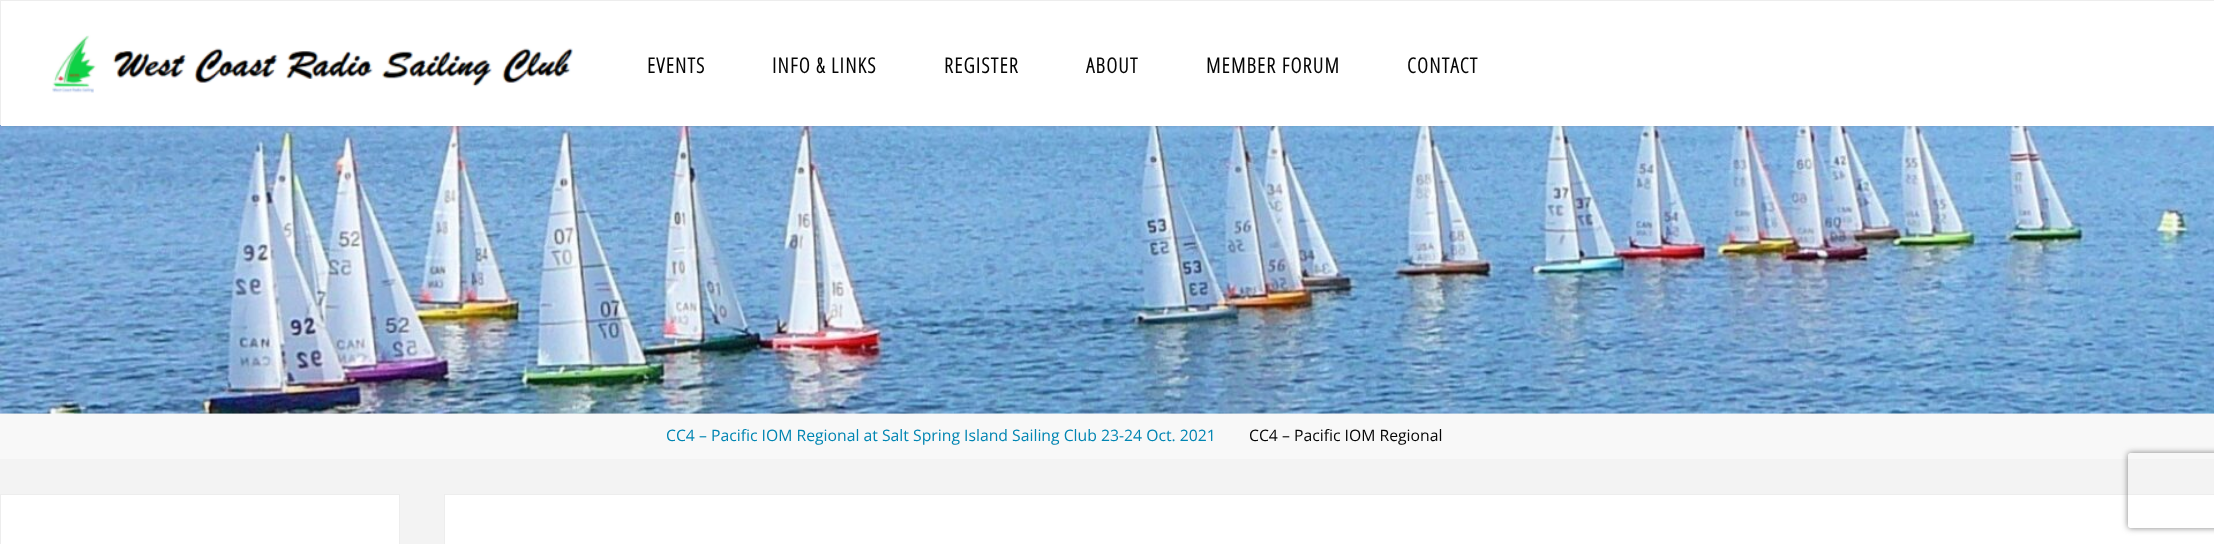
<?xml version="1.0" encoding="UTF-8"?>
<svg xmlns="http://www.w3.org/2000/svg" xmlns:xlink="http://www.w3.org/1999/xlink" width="2214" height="544">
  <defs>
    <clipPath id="clip1"><path d="M 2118 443 h 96 v 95 h -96 z m 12.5 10 h 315 c 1.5 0 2.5 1 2.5 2.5 v 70 c 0 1.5 -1 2.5 -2.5 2.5 h -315 c -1.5 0 -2.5 -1 -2.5 -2.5 v -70 c 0 -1.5 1 -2.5 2.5 -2.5 z" clip-rule="evenodd" /></clipPath>
  </defs>
  <rect width="100%" height="100%" fill="#f3f3f3" />
  <image x="0" y="125" width="2214" height="289" xlink:href="image2.png" />
  <rect width="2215" height="125" fill="#000000" fill-opacity="0.2" filter="blur(2px)" />
  <rect x="0.5" y="0.5" width="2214" height="124" fill="none" stroke="#ededed" />
  <rect x="1" y="1" width="2213" height="125" fill="#ffffff" />
  <image x="52" y="35" width="521" height="58" xlink:href="image1.png" />
  <rect y="414" width="2214" height="45" fill="#f8f8f8" />
  <rect x="0.5" y="494.5" width="399" height="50" fill="#ffffff" stroke="#ededed" />
  <rect x="444.5" y="494.5" width="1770" height="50" fill="#ffffff" stroke="#ededed" />
  <g clip-path="url(#clip1)">
    <rect x="2128" y="453" width="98" height="75" rx="2.5" fill="#808080" filter="blur(3px)" />
  </g>
  <text x="647" y="73" style="font-family: Open Sans Condensed; font-size: 21px; font-weight: bold; letter-spacing: 1.25px; fill: #050505">EVENTS</text>
  <text x="772" y="73" style="font-family: Open Sans Condensed; font-size: 21px; font-weight: bold; letter-spacing: 1.25px; fill: #050505">INFO &amp; LINKS</text>
  <text x="944" y="73" style="font-family: Open Sans Condensed; font-size: 21px; font-weight: bold; letter-spacing: 1.25px; fill: #050505">REGISTER</text>
  <text x="1086" y="73" style="font-family: Open Sans Condensed; font-size: 21px; font-weight: bold; letter-spacing: 1.25px; fill: #050505">ABOUT</text>
  <text x="1206" y="73" style="font-family: Open Sans Condensed; font-size: 21px; font-weight: bold; letter-spacing: 1.25px; fill: #050505">MEMBER FORUM</text>
  <text x="1407" y="73" style="font-family: Open Sans Condensed; font-size: 21px; font-weight: bold; letter-spacing: 1.25px; fill: #050505">CONTACT</text>
  <text x="666" y="441" style="font-family: Open Sans; font-size: 15.75px; fill: #0085b2">CC4 – Pacific IOM Regional at Salt Spring Island Sailing Club 23-24 Oct. 2021</text>
  <text x="1249" y="441" style="font-family: Open Sans; font-size: 15.75px; fill: #050505">CC4 – Pacific IOM Regional</text>
</svg>
